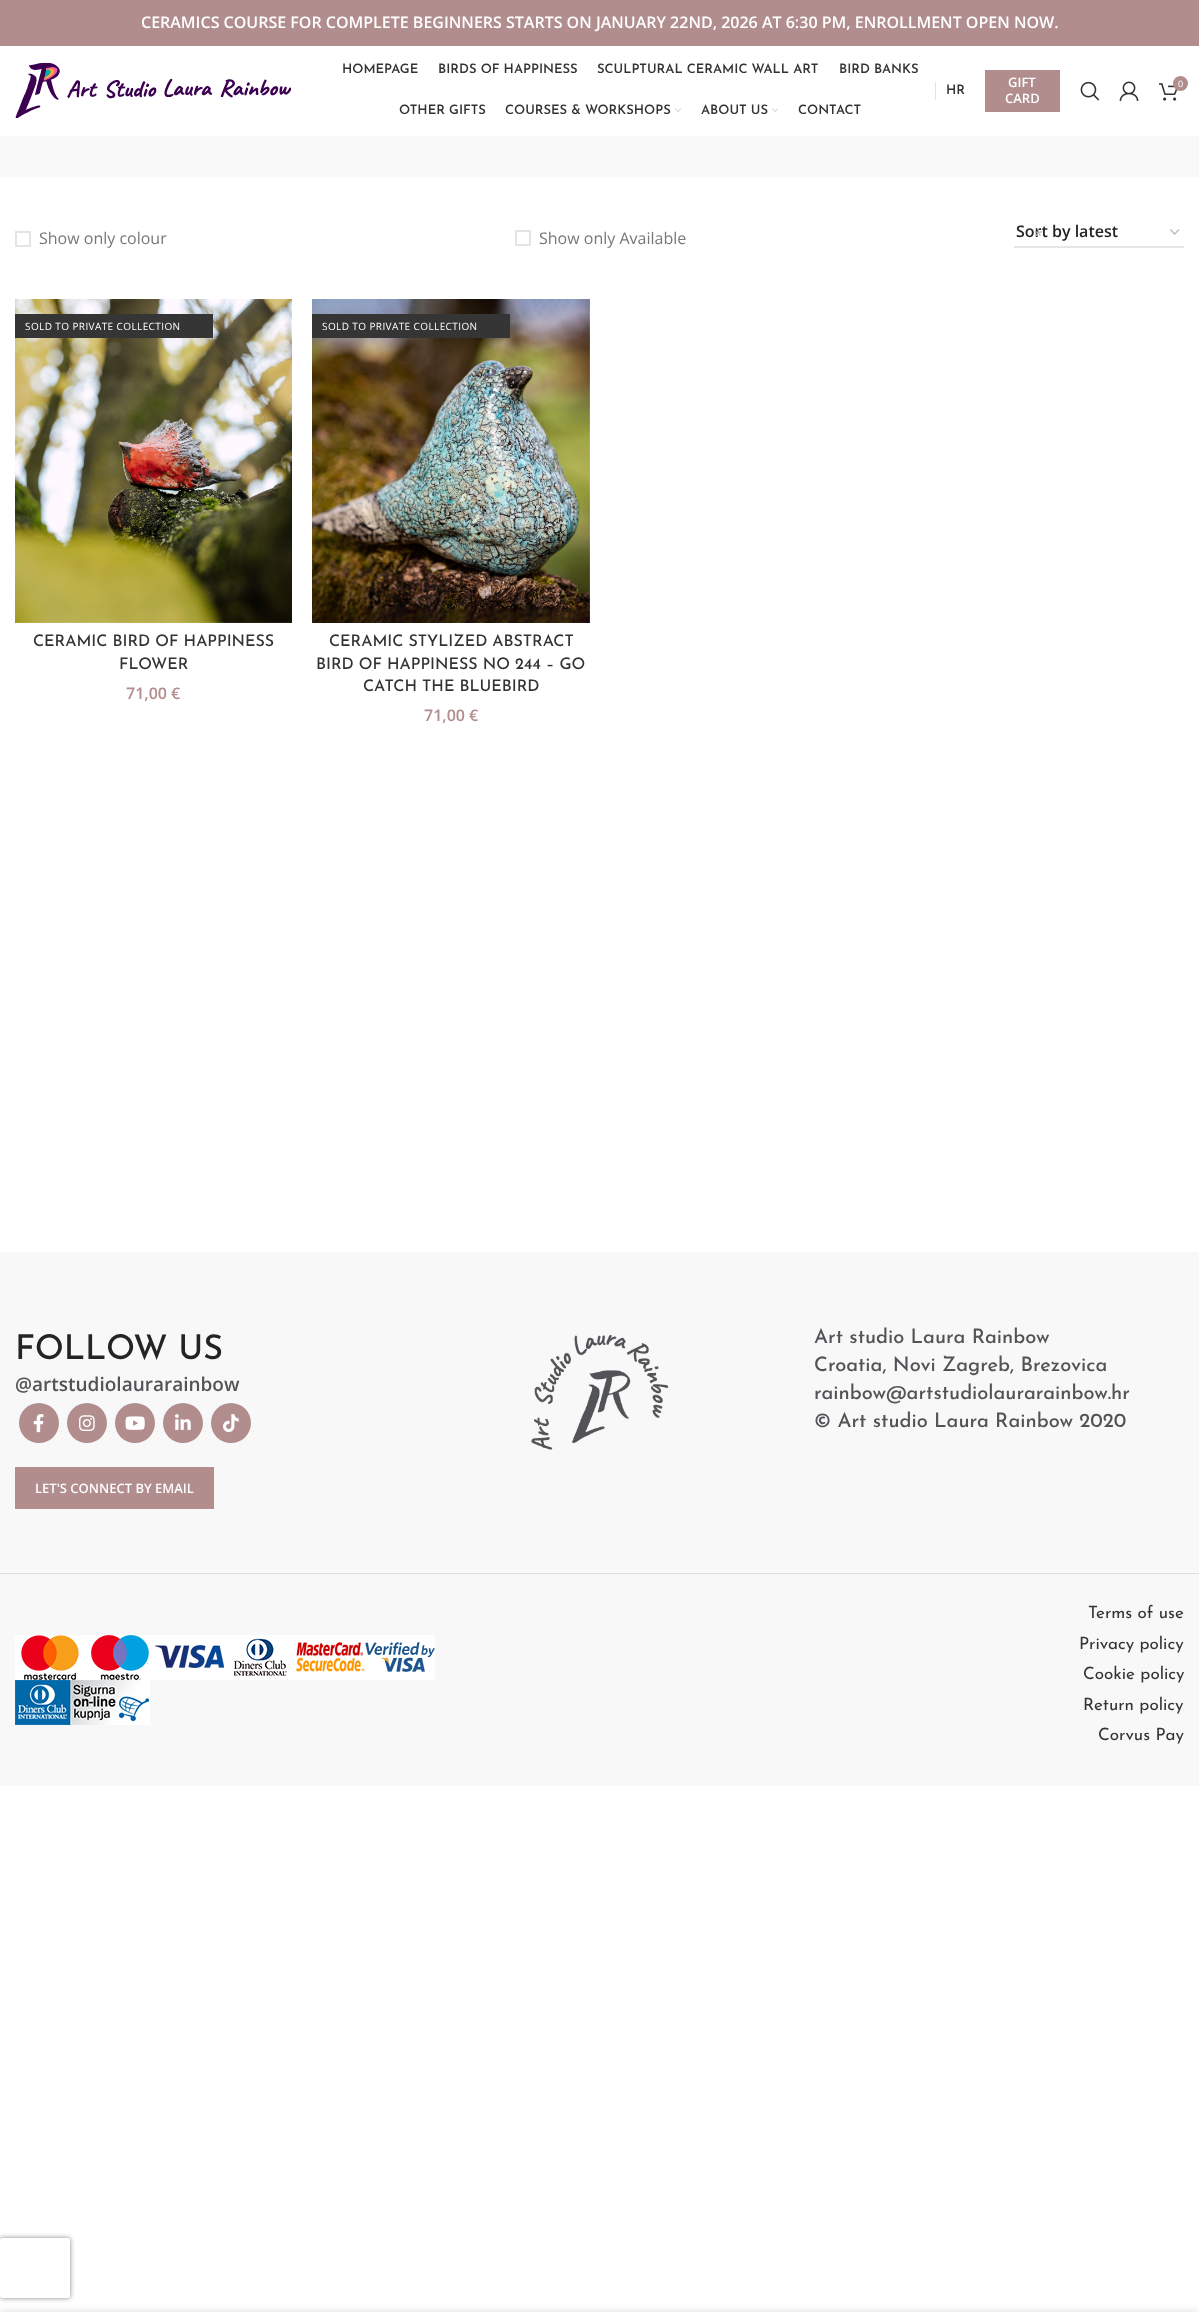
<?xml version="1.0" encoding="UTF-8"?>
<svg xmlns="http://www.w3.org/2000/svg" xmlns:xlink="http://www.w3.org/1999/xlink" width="1199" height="2312">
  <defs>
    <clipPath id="clip1"><path d="M 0 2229 h 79 v 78 h -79 z m 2 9 h 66 c 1 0 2 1 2 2 v 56 c 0 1 -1 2 -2 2 h -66 c -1 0 -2 -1 -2 -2 v -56 c 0 -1 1 -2 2 -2 z" clip-rule="evenodd" /></clipPath>
  </defs>
  <rect width="100%" height="100%" fill="#ffffff" />
  <rect width="1199" height="46" fill="#b18d8d" />
  <image x="15" y="63" width="276" height="56" xlink:href="image1.png" />
  <image x="675" y="108" width="6" height="4" xlink:href="image2.png" />
  <image x="772" y="108" width="6" height="4" xlink:href="image2.png" />
  <rect x="935" y="82" width="1" height="18" fill="#e4e4e4" />
  <rect x="985" y="70" width="75" height="42" fill="#b18d8d" />
  <image x="1080" y="81" width="20" height="20" xlink:href="image3.png" />
  <image x="1159" y="83" width="19" height="18" xlink:href="image4.png" />
  <circle cx="1180.5" cy="83.5" r="7.5" fill="#b18d8d" />
  <image x="1119" y="81" width="20" height="20" xlink:href="image5.png" />
  <rect y="136" width="1199" height="41" fill="#f9f9f9" />
  <rect x="16" y="232" width="14" height="14" fill="none" stroke="#e4e4e4" stroke-width="2" />
  <rect x="516" y="231" width="14" height="14" fill="none" stroke="#e4e4e4" stroke-width="2" />
  <path d="M 1170.5 229.5 l 4 4.5 l 4.5 -4.5" fill="none" stroke="#bbbbbb" stroke-width="1.4" />
  <rect x="1014" y="246" width="170" height="2" fill="#e6e6e6" />
  <image x="15" y="299" width="277" height="324" xlink:href="image6.png" />
  <rect x="15" y="314" width="198" height="24" fill="#353535" />
  <image x="312" y="299" width="278" height="324" xlink:href="image7.png" />
  <rect x="312" y="314" width="198" height="24" fill="#353535" />
  <rect y="1252" width="1199" height="534" fill="#f8f8f8" />
  <circle cx="39" cy="1423" r="20" fill="#b18d8d" />
  <image x="33" y="1414" width="11" height="19" xlink:href="image8.png" />
  <circle cx="87" cy="1423" r="20" fill="#b18d8d" />
  <image x="79" y="1415" width="16" height="16" xlink:href="image9.png" />
  <circle cx="135" cy="1423" r="20" fill="#b18d8d" />
  <image x="125" y="1416" width="20" height="14" xlink:href="image10.png" />
  <circle cx="183" cy="1423" r="20" fill="#b18d8d" />
  <image x="175" y="1414" width="16" height="16" xlink:href="image11.png" />
  <circle cx="231" cy="1423" r="20" fill="#b18d8d" />
  <image x="223" y="1414" width="16" height="19" xlink:href="image12.png" />
  <rect x="15" y="1467" width="199" height="42" fill="#b18d8d" />
  <image x="531" y="1335" width="138" height="115" xlink:href="image13.png" />
  <rect y="1573" width="1199" height="1" fill="#dedede" />
  <image x="15" y="1635" width="70" height="45" xlink:href="image14.png" />
  <image x="85" y="1635" width="70" height="45" xlink:href="image15.png" />
  <image x="155" y="1635" width="70" height="45" xlink:href="image16.png" />
  <image x="225" y="1635" width="70" height="45" xlink:href="image17.png" />
  <image x="295" y="1635" width="70" height="45" xlink:href="image18.png" />
  <image x="365" y="1635" width="70" height="45" xlink:href="image19.png" />
  <image x="15" y="1680" width="135" height="45" xlink:href="image20.png" />
  <g clip-path="url(#clip1)">
    <rect y="2238" width="70" height="60" rx="2" fill="#808080" filter="blur(2.5px)" />
  </g>
  <rect y="2312" width="1199" height="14" fill="#000000" fill-opacity="0.14" filter="blur(4.5px)" />
  <text x="141" y="28" style="font-family: Open Sans; font-size: 16px; font-weight: 600; fill: #ffffff">CERAMICS COURSE FOR COMPLETE BEGINNERS STARTS ON JANUARY 22ND, 2026 AT 6:30 PM, ENROLLMENT OPEN NOW.</text>
  <text x="342" y="73" style="font-family: Josefin Sans; font-size: 13px; font-weight: 600; fill: #333333">HOMEPAGE</text>
  <text x="438" y="73" style="font-family: Josefin Sans; font-size: 13px; font-weight: 600; fill: #333333">BIRDS OF HAPPINESS</text>
  <text x="597" y="73" style="font-family: Josefin Sans; font-size: 13px; font-weight: 600; fill: #333333">SCULPTURAL CERAMIC WALL ART</text>
  <text x="839" y="73" style="font-family: Josefin Sans; font-size: 13px; font-weight: 600; fill: #333333">BIRD BANKS</text>
  <text x="399" y="114" style="font-family: Josefin Sans; font-size: 13px; font-weight: 600; fill: #333333">OTHER GIFTS</text>
  <text x="505" y="114" style="font-family: Josefin Sans; font-size: 13px; font-weight: 600; fill: #333333">COURSES &amp; WORKSHOPS</text>
  <text x="701" y="114" style="font-family: Josefin Sans; font-size: 13px; font-weight: 600; fill: #333333">ABOUT US</text>
  <text x="798" y="114" style="font-family: Josefin Sans; font-size: 13px; font-weight: 600; fill: #333333">CONTACT</text>
  <text x="946" y="94" style="font-family: Josefin Sans; font-size: 13px; font-weight: 600; fill: #333333">HR</text>
  <text x="1008" y="87" style="font-family: Open Sans; font-size: 13px; font-weight: 600; fill: #ffffff">GIFT</text>
  <text x="1005" y="103" style="font-family: Open Sans; font-size: 13px; font-weight: 600; fill: #ffffff">CARD</text>
  <text x="1178" y="87" style="font-family: Open Sans; font-size: 9px; fill: #ffffff">0</text>
  <text x="39" y="244" style="font-family: Open Sans; font-size: 16px; fill: #777777">Show only colour</text>
  <text x="539" y="244" style="font-family: Open Sans; font-size: 16px; fill: #777777">Show only Available</text>
  <text x="1016" y="237" style="font-family: Open Sans; font-size: 16px; font-weight: 600; fill: #242424">Sort by latest</text>
  <text x="1034" y="241" style="font-family: Open Sans; font-size: 16px; fill: #b9b9b9">*</text>
  <text x="25" y="330" style="font-family: Open Sans; font-size: 10px; letter-spacing: 0.4px; fill: #ffffff">SOLD TO PRIVATE COLLECTION</text>
  <text x="33" y="646" style="font-family: Josefin Sans; font-size: 16px; font-weight: 500; fill: #333333">CERAMIC BIRD OF HAPPINESS</text>
  <text x="119" y="669" style="font-family: Josefin Sans; font-size: 16px; font-weight: 500; fill: #333333">FLOWER</text>
  <text x="126" y="699" style="font-family: Open Sans; font-size: 16px; font-weight: 600; fill: #b18d8d">71,00 €</text>
  <text x="322" y="330" style="font-family: Open Sans; font-size: 10px; letter-spacing: 0.4px; fill: #ffffff">SOLD TO PRIVATE COLLECTION</text>
  <text x="329" y="646" style="font-family: Josefin Sans; font-size: 16px; font-weight: 500; fill: #333333">CERAMIC STYLIZED ABSTRACT</text>
  <text x="316" y="669" style="font-family: Josefin Sans; font-size: 16px; font-weight: 500; fill: #333333">BIRD OF HAPPINESS NO 244 – GO</text>
  <text x="363" y="691" style="font-family: Josefin Sans; font-size: 16px; font-weight: 500; fill: #333333">CATCH THE BLUEBIRD</text>
  <text x="424" y="721" style="font-family: Open Sans; font-size: 16px; font-weight: 600; fill: #b18d8d">71,00 €</text>
  <text x="15" y="1359" style="font-family: Josefin Sans; font-size: 34px; font-weight: 500; fill: #242424">FOLLOW US</text>
  <text x="15" y="1391" style="font-family: Open Sans; font-size: 19px; font-weight: 600; fill: #525356">@artstudiolaurarainbow</text>
  <text x="35" y="1493" style="font-family: Open Sans; font-size: 13px; font-weight: 600; fill: #ffffff">LET'S CONNECT BY EMAIL</text>
  <text x="814" y="1343" style="font-family: Josefin Sans; font-size: 20px; font-weight: 500; fill: #525356">Art studio Laura Rainbow</text>
  <text x="814" y="1371" style="font-family: Josefin Sans; font-size: 20px; font-weight: 500; fill: #525356">Croatia, Novi Zagreb, Brezovica</text>
  <text x="814" y="1399" style="font-family: Josefin Sans; font-size: 20px; font-weight: 500; fill: #525356">rainbow@artstudiolaurarainbow.hr</text>
  <text x="814" y="1427" style="font-family: Josefin Sans; font-size: 20px; font-weight: 500; fill: #525356">© Art studio Laura Rainbow 2020</text>
  <text x="1088" y="1618" style="font-family: Josefin Sans; font-size: 17px; fill: #333333">Terms of use</text>
  <text x="1079" y="1649" style="font-family: Josefin Sans; font-size: 17px; fill: #333333">Privacy policy</text>
  <text x="1083" y="1679" style="font-family: Josefin Sans; font-size: 17px; fill: #333333">Cookie policy</text>
  <text x="1083" y="1710" style="font-family: Josefin Sans; font-size: 17px; fill: #333333">Return policy</text>
  <text x="1098" y="1740" style="font-family: Josefin Sans; font-size: 17px; fill: #333333">Corvus Pay</text>
</svg>
